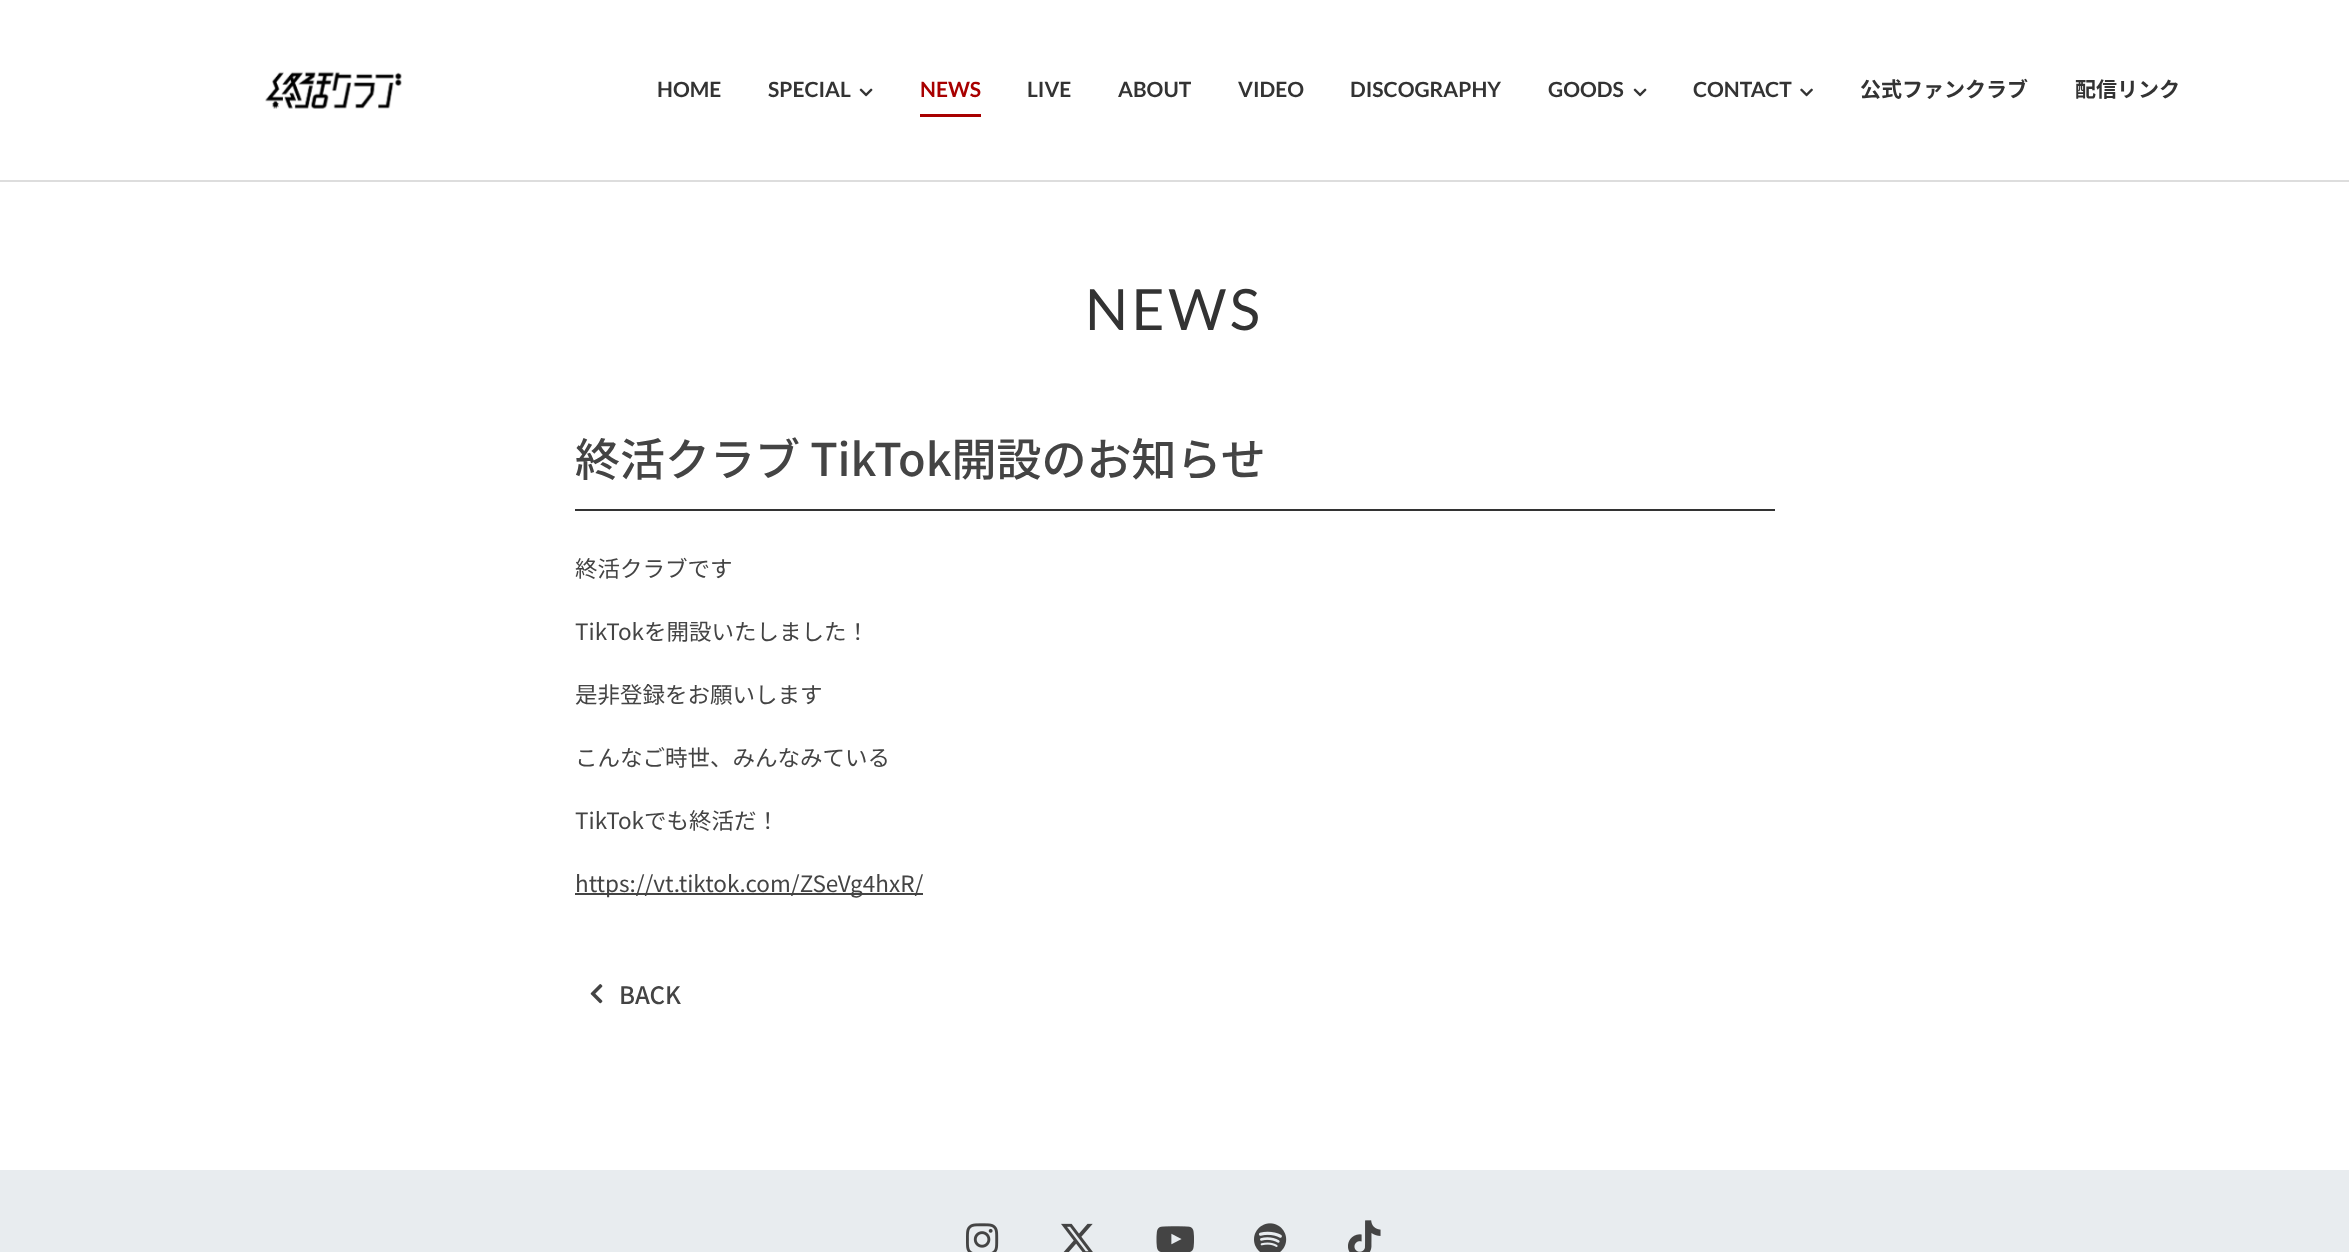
<?xml version="1.0" encoding="UTF-8"?>
<svg xmlns="http://www.w3.org/2000/svg" xmlns:xlink="http://www.w3.org/1999/xlink" width="2349" height="1252">
  <rect width="100%" height="100%" fill="#ffffff" />
  <rect y="180" width="2349" height="2" fill="#dddddd" />
  <image x="265" y="71" width="137" height="38" xlink:href="image1.png" />
  <image x="859" y="88" width="14" height="9" xlink:href="image2.png" />
  <rect x="920" y="114" width="61" height="3" fill="#a80000" />
  <image x="1633" y="88" width="14" height="9" xlink:href="image2.png" />
  <image x="1800" y="88" width="13" height="9" xlink:href="image3.png" />
  <rect x="575" y="509" width="1200" height="2" fill="#333333" />
  <rect x="575" y="893" width="348" height="2" fill="#444444" />
  <image x="590" y="984" width="13" height="20" xlink:href="image4.png" />
  <rect y="1170" width="2349" height="82" fill="#e8ecef" />
  <image x="966" y="1223" width="33" height="29" xlink:href="image5.png" />
  <image x="1061" y="1223" width="32" height="29" xlink:href="image6.png" />
  <image x="1156" y="1226" width="38" height="26" xlink:href="image7.png" />
  <image x="1254" y="1223" width="33" height="29" xlink:href="image8.png" />
  <image x="1348" y="1220" width="33" height="32" xlink:href="image9.png" />
  <text x="657" y="97" style="font-family: Lato; font-size: 21px; font-weight: bold; fill: #333333">HOME</text>
  <text x="768" y="97" style="font-family: Lato; font-size: 21px; font-weight: bold; fill: #333333">SPECIAL</text>
  <text x="920" y="97" style="font-family: Lato; font-size: 21px; font-weight: bold; fill: #a80000">NEWS</text>
  <text x="1027" y="97" style="font-family: Lato; font-size: 21px; font-weight: bold; fill: #333333">LIVE</text>
  <text x="1118" y="97" style="font-family: Lato; font-size: 21px; font-weight: bold; fill: #333333">ABOUT</text>
  <text x="1238" y="97" style="font-family: Lato; font-size: 21px; font-weight: bold; fill: #333333">VIDEO</text>
  <text x="1350" y="97" style="font-family: Lato; font-size: 21px; font-weight: bold; fill: #333333">DISCOGRAPHY</text>
  <text x="1548" y="97" style="font-family: Lato; font-size: 21px; font-weight: bold; fill: #333333">GOODS</text>
  <text x="1693" y="97" style="font-family: Lato; font-size: 21px; font-weight: bold; fill: #333333">CONTACT</text>
  <text x="1860" y="97" style="font-family: Noto Sans JP; font-size: 21px; font-weight: bold; fill: #333333">公式ファンクラブ</text>
  <text x="2075" y="97" style="font-family: Noto Sans JP; font-size: 21px; font-weight: bold; fill: #333333">配信リンク</text>
  <text x="1085" y="330" style="font-family: Lato; font-size: 57px; letter-spacing: 3.5px; fill: #333333">NEWS</text>
  <text x="575" y="476" style="font-family: Noto Sans JP; font-size: 45px; font-weight: 500; fill: #444444">終活クラブ TikTok開設のお知らせ</text>
  <text x="575" y="577" style="font-family: Noto Sans JP; font-size: 22.5px; fill: #444444">終活クラブです</text>
  <text x="575" y="640" style="font-family: Noto Sans JP; font-size: 22.5px; fill: #444444">TikTokを開設いたしました！</text>
  <text x="575" y="703" style="font-family: Noto Sans JP; font-size: 22.5px; fill: #444444">是非登録をお願いします</text>
  <text x="575" y="766" style="font-family: Noto Sans JP; font-size: 22.5px; fill: #444444">こんなご時世、みんなみている</text>
  <text x="575" y="829" style="font-family: Noto Sans JP; font-size: 22.5px; fill: #444444">TikTokでも終活だ！</text>
  <text x="575" y="892" style="font-family: Noto Sans JP; font-size: 22.5px; fill: #444444">https://vt.tiktok.com/ZSeVg4hxR/</text>
  <text x="619" y="1004" style="font-family: Noto Sans JP; font-size: 24px; font-weight: 500; fill: #444444">BACK</text>
</svg>
